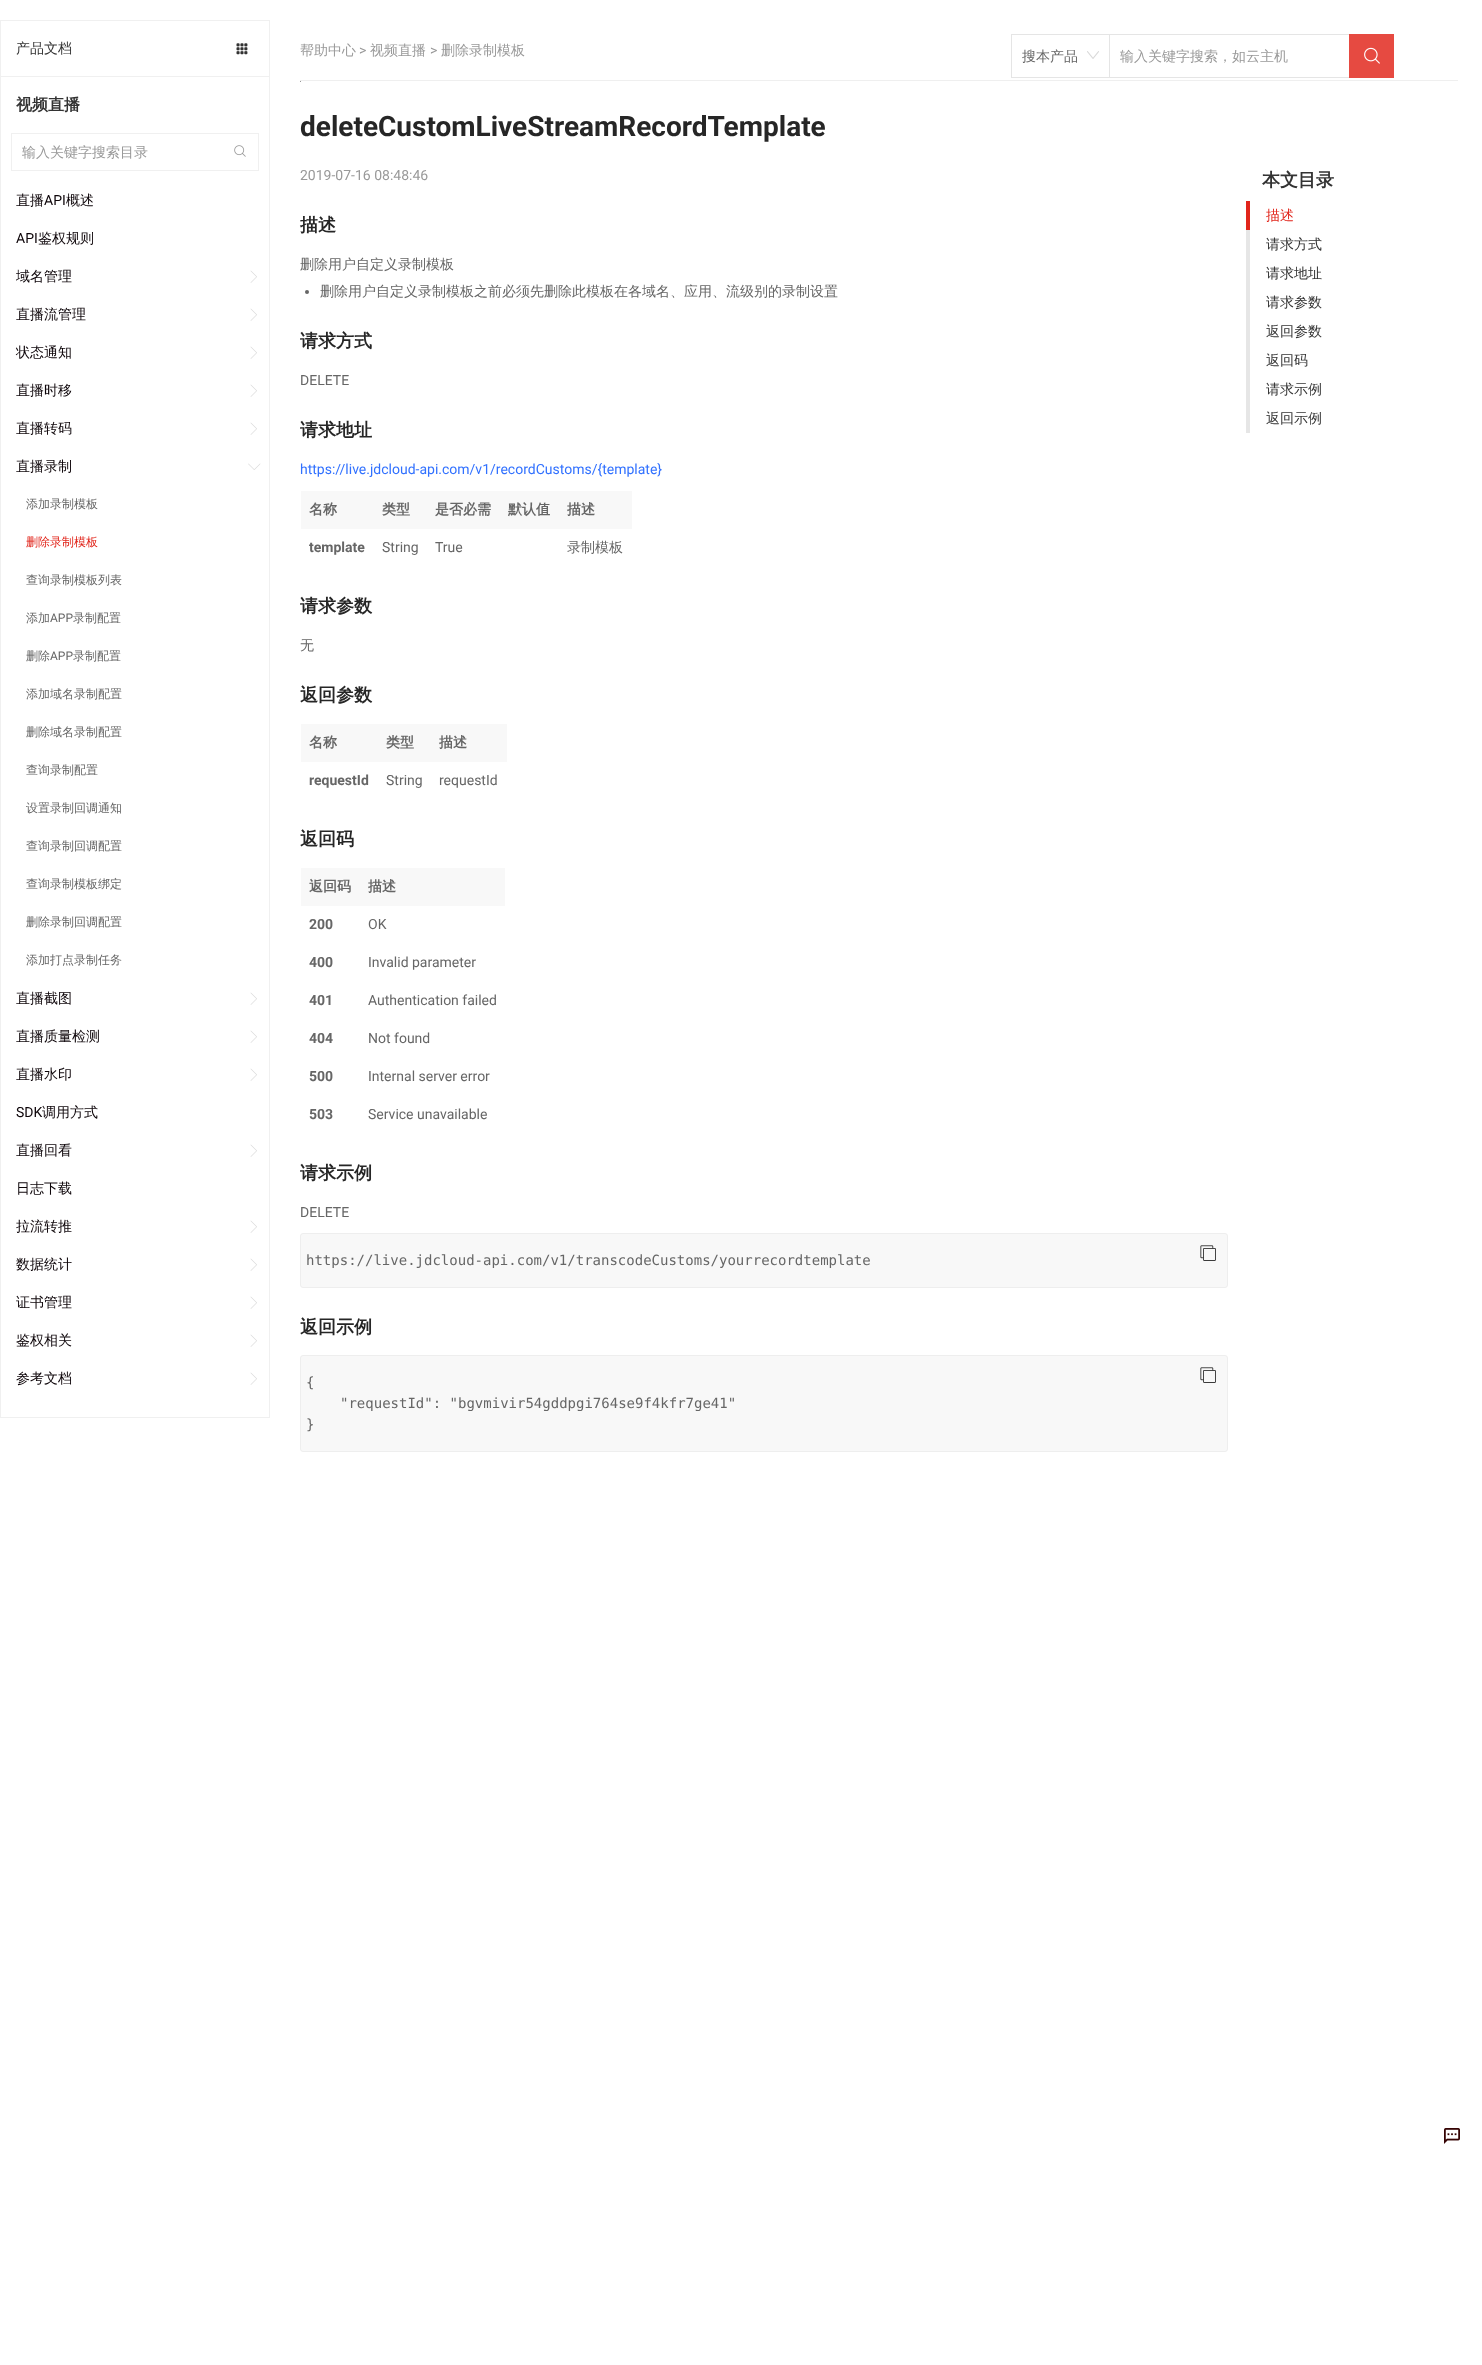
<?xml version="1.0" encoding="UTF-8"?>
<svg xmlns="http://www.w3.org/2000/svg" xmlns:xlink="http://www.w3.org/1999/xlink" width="1482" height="2365">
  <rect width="100%" height="100%" fill="#ffffff" />
  <rect x="0.5" y="20.5" width="269" height="1397" fill="none" stroke="#f0f0f0" />
  <rect x="1" y="76" width="268" height="1" fill="#f0f0f0" />
  <image x="236" y="43" width="12" height="12" xlink:href="image1.png" />
  <rect x="11.5" y="133.5" width="247" height="37" fill="none" stroke="#f0f0f0" />
  <image x="234" y="145" width="12" height="12" xlink:href="image2.png" />
  <image x="250" y="270" width="7" height="13" xlink:href="image3.png" />
  <image x="250" y="308" width="7" height="13" xlink:href="image3.png" />
  <image x="250" y="346" width="7" height="13" xlink:href="image3.png" />
  <image x="250" y="384" width="7" height="13" xlink:href="image3.png" />
  <image x="250" y="422" width="7" height="13" xlink:href="image3.png" />
  <image x="248" y="463" width="13" height="7" xlink:href="image4.png" />
  <image x="250" y="992" width="7" height="13" xlink:href="image3.png" />
  <image x="250" y="1030" width="7" height="13" xlink:href="image3.png" />
  <image x="250" y="1068" width="7" height="13" xlink:href="image3.png" />
  <image x="250" y="1144" width="7" height="13" xlink:href="image3.png" />
  <image x="250" y="1220" width="7" height="13" xlink:href="image3.png" />
  <image x="250" y="1258" width="7" height="13" xlink:href="image3.png" />
  <image x="250" y="1296" width="7" height="13" xlink:href="image3.png" />
  <image x="250" y="1334" width="7" height="13" xlink:href="image3.png" />
  <image x="250" y="1372" width="7" height="13" xlink:href="image3.png" />
  <rect x="300" y="80" width="1158" height="1" fill="#efefef" />
  <rect x="1011" y="34" width="98" height="1" fill="#e5e5e5" />
  <rect x="1011" y="77" width="98" height="1" fill="#e5e5e5" />
  <rect x="1011" y="34" width="1" height="44" fill="#e5e5e5" />
  <image x="1087" y="51" width="12" height="8" xlink:href="image5.png" />
  <rect x="1109.5" y="34.5" width="284" height="43" fill="none" stroke="#e5e5e5" />
  <rect x="1349" y="34" width="45" height="44" fill="#e64a41" />
  <image x="1364" y="47" width="16" height="17" xlink:href="image6.png" />
  <circle cx="300.5" cy="81.5" r="0.5" fill="#767676" />
  <circle cx="307" cy="292" r="2" fill="#666666" />
  <rect x="301" y="491" width="331" height="38" fill="#f8f8f8" />
  <rect x="301" y="724" width="206" height="38" fill="#f8f8f8" />
  <rect x="301" y="868" width="204" height="38" fill="#f8f8f8" />
  <rect x="300.5" y="1233.5" width="927" height="54" rx="2.5" fill="#f8f8f8" stroke="#eeeeee" />
  <image x="1200" y="1245" width="16" height="16" xlink:href="image7.png" />
  <rect x="300.5" y="1355.5" width="927" height="96" rx="2.5" fill="#f8f8f8" stroke="#eeeeee" />
  <image x="1200" y="1367" width="16" height="16" xlink:href="image7.png" />
  <rect x="1246" y="230" width="4" height="203" fill="#e6e6e6" />
  <rect x="1246" y="201" width="4" height="29" fill="#e1251b" />
  <image x="1444" y="2128" width="16" height="16" xlink:href="image8.png" />
  <text x="16" y="53" style="font-family: WenQuanYi Zen Hei; font-size: 14px; font-weight: 500; fill: #333333">产品文档</text>
  <text x="16" y="110" style="font-family: WenQuanYi Zen Hei; font-size: 16px; font-weight: bold; fill: #333333">视频直播</text>
  <text x="22" y="157" style="font-family: WenQuanYi Zen Hei; font-size: 14px; font-weight: 500; fill: #999999">输入关键字搜索目录</text>
  <text x="16" y="205" style="font-family: WenQuanYi Zen Hei; font-size: 14px; font-weight: 500; fill: #0d0509">直播</text>
  <text x="44" y="205" style="font-family: Roboto; font-size: 14px; fill: #0d0509">API</text>
  <text x="66" y="205" style="font-family: WenQuanYi Zen Hei; font-size: 14px; font-weight: 500; fill: #0d0509">概述</text>
  <text x="16" y="243" style="font-family: Roboto; font-size: 14px; fill: #0d0509">API</text>
  <text x="38" y="243" style="font-family: WenQuanYi Zen Hei; font-size: 14px; font-weight: 500; fill: #0d0509">鉴权规则</text>
  <text x="16" y="281" style="font-family: WenQuanYi Zen Hei; font-size: 14px; font-weight: 500; fill: #0d0509">域名管理</text>
  <text x="16" y="319" style="font-family: WenQuanYi Zen Hei; font-size: 14px; font-weight: 500; fill: #0d0509">直播流管理</text>
  <text x="16" y="357" style="font-family: WenQuanYi Zen Hei; font-size: 14px; font-weight: 500; fill: #0d0509">状态通知</text>
  <text x="16" y="395" style="font-family: WenQuanYi Zen Hei; font-size: 14px; font-weight: 500; fill: #0d0509">直播时移</text>
  <text x="16" y="433" style="font-family: WenQuanYi Zen Hei; font-size: 14px; font-weight: 500; fill: #0d0509">直播转码</text>
  <text x="16" y="471" style="font-family: WenQuanYi Zen Hei; font-size: 14px; font-weight: 500; fill: #0d0509">直播录制</text>
  <text x="26" y="508" style="font-family: WenQuanYi Zen Hei; font-size: 12px; font-weight: 500; fill: #666666">添加录制模板</text>
  <text x="26" y="546" style="font-family: WenQuanYi Zen Hei; font-size: 12px; font-weight: 500; fill: #e1251b">删除录制模板</text>
  <text x="26" y="584" style="font-family: WenQuanYi Zen Hei; font-size: 12px; font-weight: 500; fill: #666666">查询录制模板列表</text>
  <text x="26" y="622" style="font-family: WenQuanYi Zen Hei; font-size: 12px; font-weight: 500; fill: #666666">添加</text>
  <text x="50" y="622" style="font-family: Roboto; font-size: 12px; fill: #666666">APP</text>
  <text x="73" y="622" style="font-family: WenQuanYi Zen Hei; font-size: 12px; font-weight: 500; fill: #666666">录制配置</text>
  <text x="26" y="660" style="font-family: WenQuanYi Zen Hei; font-size: 12px; font-weight: 500; fill: #666666">删除</text>
  <text x="50" y="660" style="font-family: Roboto; font-size: 12px; fill: #666666">APP</text>
  <text x="73" y="660" style="font-family: WenQuanYi Zen Hei; font-size: 12px; font-weight: 500; fill: #666666">录制配置</text>
  <text x="26" y="698" style="font-family: WenQuanYi Zen Hei; font-size: 12px; font-weight: 500; fill: #666666">添加域名录制配置</text>
  <text x="26" y="736" style="font-family: WenQuanYi Zen Hei; font-size: 12px; font-weight: 500; fill: #666666">删除域名录制配置</text>
  <text x="26" y="774" style="font-family: WenQuanYi Zen Hei; font-size: 12px; font-weight: 500; fill: #666666">查询录制配置</text>
  <text x="26" y="812" style="font-family: WenQuanYi Zen Hei; font-size: 12px; font-weight: 500; fill: #666666">设置录制回调通知</text>
  <text x="26" y="850" style="font-family: WenQuanYi Zen Hei; font-size: 12px; font-weight: 500; fill: #666666">查询录制回调配置</text>
  <text x="26" y="888" style="font-family: WenQuanYi Zen Hei; font-size: 12px; font-weight: 500; fill: #666666">查询录制模板绑定</text>
  <text x="26" y="926" style="font-family: WenQuanYi Zen Hei; font-size: 12px; font-weight: 500; fill: #666666">删除录制回调配置</text>
  <text x="26" y="964" style="font-family: WenQuanYi Zen Hei; font-size: 12px; font-weight: 500; fill: #666666">添加打点录制任务</text>
  <text x="16" y="1003" style="font-family: WenQuanYi Zen Hei; font-size: 14px; font-weight: 500; fill: #0d0509">直播截图</text>
  <text x="16" y="1041" style="font-family: WenQuanYi Zen Hei; font-size: 14px; font-weight: 500; fill: #0d0509">直播质量检测</text>
  <text x="16" y="1079" style="font-family: WenQuanYi Zen Hei; font-size: 14px; font-weight: 500; fill: #0d0509">直播水印</text>
  <text x="16" y="1117" style="font-family: Roboto; font-size: 14px; fill: #0d0509">SDK</text>
  <text x="42" y="1117" style="font-family: WenQuanYi Zen Hei; font-size: 14px; font-weight: 500; fill: #0d0509">调用方式</text>
  <text x="16" y="1155" style="font-family: WenQuanYi Zen Hei; font-size: 14px; font-weight: 500; fill: #0d0509">直播回看</text>
  <text x="16" y="1193" style="font-family: WenQuanYi Zen Hei; font-size: 14px; font-weight: 500; fill: #0d0509">日志下载</text>
  <text x="16" y="1231" style="font-family: WenQuanYi Zen Hei; font-size: 14px; font-weight: 500; fill: #0d0509">拉流转推</text>
  <text x="16" y="1269" style="font-family: WenQuanYi Zen Hei; font-size: 14px; font-weight: 500; fill: #0d0509">数据统计</text>
  <text x="16" y="1307" style="font-family: WenQuanYi Zen Hei; font-size: 14px; font-weight: 500; fill: #0d0509">证书管理</text>
  <text x="16" y="1345" style="font-family: WenQuanYi Zen Hei; font-size: 14px; font-weight: 500; fill: #0d0509">鉴权相关</text>
  <text x="16" y="1383" style="font-family: WenQuanYi Zen Hei; font-size: 14px; font-weight: 500; fill: #0d0509">参考文档</text>
  <text x="300" y="55" style="font-family: WenQuanYi Zen Hei; font-size: 14px; font-weight: 500; fill: #999999">帮助中心</text>
  <text x="359" y="55" style="font-family: Roboto; font-size: 14px; fill: #999999">&gt;</text>
  <text x="370" y="55" style="font-family: WenQuanYi Zen Hei; font-size: 14px; font-weight: 500; fill: #999999">视频直播</text>
  <text x="430" y="55" style="font-family: Roboto; font-size: 14px; fill: #999999">&gt;</text>
  <text x="441" y="55" style="font-family: WenQuanYi Zen Hei; font-size: 14px; font-weight: 500; fill: #999999">删除录制模板</text>
  <text x="1022" y="61" style="font-family: WenQuanYi Zen Hei; font-size: 14px; font-weight: 500; fill: #666666">搜本产品</text>
  <text x="1120" y="61" style="font-family: WenQuanYi Zen Hei; font-size: 14px; font-weight: 500; fill: #999999">输入关键字搜索，如云主机</text>
  <text x="300" y="136" style="font-family: Roboto; font-size: 28px; font-weight: bold; fill: #262626">deleteCustomLiveStreamRecordTemplate</text>
  <text x="300" y="180" style="font-family: Roboto; font-size: 14px; fill: #999999">2019-07-16 08:48:46</text>
  <text x="300" y="231" style="font-family: WenQuanYi Zen Hei; font-size: 18px; font-weight: bold; fill: #262626">描述</text>
  <text x="300" y="269" style="font-family: WenQuanYi Zen Hei; font-size: 14px; font-weight: 500; fill: #666666">删除用户自定义录制模板</text>
  <text x="320" y="296" style="font-family: WenQuanYi Zen Hei; font-size: 14px; font-weight: 500; fill: #666666">删除用户自定义录制模板之前必须先删除此模板在各域名、应用、流级别的录制设置</text>
  <text x="300" y="347" style="font-family: WenQuanYi Zen Hei; font-size: 18px; font-weight: bold; fill: #262626">请求方式</text>
  <text x="300" y="385" style="font-family: Roboto; font-size: 14px; fill: #666666">DELETE</text>
  <text x="300" y="436" style="font-family: WenQuanYi Zen Hei; font-size: 18px; font-weight: bold; fill: #262626">请求地址</text>
  <text x="300" y="474" style="font-family: Roboto; font-size: 14px; fill: #3171ff">https://live.jdcloud-api.com/v1/recordCustoms/{template}</text>
  <text x="309" y="514" style="font-family: WenQuanYi Zen Hei; font-size: 14px; font-weight: bold; fill: #666666">名称</text>
  <text x="382" y="514" style="font-family: WenQuanYi Zen Hei; font-size: 14px; font-weight: bold; fill: #666666">类型</text>
  <text x="435" y="514" style="font-family: WenQuanYi Zen Hei; font-size: 14px; font-weight: bold; fill: #666666">是否必需</text>
  <text x="508" y="514" style="font-family: WenQuanYi Zen Hei; font-size: 14px; font-weight: bold; fill: #666666">默认值</text>
  <text x="567" y="514" style="font-family: WenQuanYi Zen Hei; font-size: 14px; font-weight: bold; fill: #666666">描述</text>
  <text x="309" y="552" style="font-family: Roboto; font-size: 14px; font-weight: bold; fill: #666666">template</text>
  <text x="382" y="552" style="font-family: Roboto; font-size: 14px; fill: #666666">String</text>
  <text x="435" y="552" style="font-family: Roboto; font-size: 14px; fill: #666666">True</text>
  <text x="567" y="552" style="font-family: WenQuanYi Zen Hei; font-size: 14px; font-weight: 500; fill: #666666">录制模板</text>
  <text x="300" y="612" style="font-family: WenQuanYi Zen Hei; font-size: 18px; font-weight: bold; fill: #262626">请求参数</text>
  <text x="300" y="650" style="font-family: WenQuanYi Zen Hei; font-size: 14px; font-weight: 500; fill: #666666">无</text>
  <text x="300" y="701" style="font-family: WenQuanYi Zen Hei; font-size: 18px; font-weight: bold; fill: #262626">返回参数</text>
  <text x="309" y="747" style="font-family: WenQuanYi Zen Hei; font-size: 14px; font-weight: bold; fill: #666666">名称</text>
  <text x="386" y="747" style="font-family: WenQuanYi Zen Hei; font-size: 14px; font-weight: bold; fill: #666666">类型</text>
  <text x="439" y="747" style="font-family: WenQuanYi Zen Hei; font-size: 14px; font-weight: bold; fill: #666666">描述</text>
  <text x="309" y="785" style="font-family: Roboto; font-size: 14px; font-weight: bold; fill: #666666">requestId</text>
  <text x="386" y="785" style="font-family: Roboto; font-size: 14px; fill: #666666">String</text>
  <text x="439" y="785" style="font-family: Roboto; font-size: 14px; fill: #666666">requestId</text>
  <text x="300" y="845" style="font-family: WenQuanYi Zen Hei; font-size: 18px; font-weight: bold; fill: #262626">返回码</text>
  <text x="309" y="891" style="font-family: WenQuanYi Zen Hei; font-size: 14px; font-weight: bold; fill: #666666">返回码</text>
  <text x="368" y="891" style="font-family: WenQuanYi Zen Hei; font-size: 14px; font-weight: bold; fill: #666666">描述</text>
  <text x="309" y="929" style="font-family: Roboto; font-size: 14px; font-weight: bold; fill: #666666">200</text>
  <text x="368" y="929" style="font-family: Roboto; font-size: 14px; fill: #666666">OK</text>
  <text x="309" y="967" style="font-family: Roboto; font-size: 14px; font-weight: bold; fill: #666666">400</text>
  <text x="368" y="967" style="font-family: Roboto; font-size: 14px; fill: #666666">Invalid parameter</text>
  <text x="309" y="1005" style="font-family: Roboto; font-size: 14px; font-weight: bold; fill: #666666">401</text>
  <text x="368" y="1005" style="font-family: Roboto; font-size: 14px; fill: #666666">Authentication failed</text>
  <text x="309" y="1043" style="font-family: Roboto; font-size: 14px; font-weight: bold; fill: #666666">404</text>
  <text x="368" y="1043" style="font-family: Roboto; font-size: 14px; fill: #666666">Not found</text>
  <text x="309" y="1081" style="font-family: Roboto; font-size: 14px; font-weight: bold; fill: #666666">500</text>
  <text x="368" y="1081" style="font-family: Roboto; font-size: 14px; fill: #666666">Internal server error</text>
  <text x="309" y="1119" style="font-family: Roboto; font-size: 14px; font-weight: bold; fill: #666666">503</text>
  <text x="368" y="1119" style="font-family: Roboto; font-size: 14px; fill: #666666">Service unavailable</text>
  <text x="300" y="1179" style="font-family: WenQuanYi Zen Hei; font-size: 18px; font-weight: bold; fill: #262626">请求示例</text>
  <text x="300" y="1217" style="font-family: Roboto; font-size: 14px; fill: #666666">DELETE</text>
  <text x="306" y="1265" style="font-family: DejaVu Sans Mono; font-size: 14px; fill: #666666">https://live.jdcloud-api.com/v1/transcodeCustoms/yourrecordtemplate</text>
  <text x="300" y="1333" style="font-family: WenQuanYi Zen Hei; font-size: 18px; font-weight: bold; fill: #262626">返回示例</text>
  <text x="306" y="1387" style="font-family: DejaVu Sans Mono; font-size: 14px; fill: #666666">{</text>
  <text x="340" y="1408" style="font-family: DejaVu Sans Mono; font-size: 14px; fill: #666666">"requestId": "bgvmivir54gddpgi764se9f4kfr7ge41"</text>
  <text x="306" y="1429" style="font-family: DejaVu Sans Mono; font-size: 14px; fill: #666666">}</text>
  <text x="1262" y="186" style="font-family: WenQuanYi Zen Hei; font-size: 18px; font-weight: bold; fill: #333333">本文目录</text>
  <text x="1266" y="220" style="font-family: WenQuanYi Zen Hei; font-size: 14px; font-weight: 500; fill: #e1251b">描述</text>
  <text x="1266" y="249" style="font-family: WenQuanYi Zen Hei; font-size: 14px; font-weight: 500; fill: #333333">请求方式</text>
  <text x="1266" y="278" style="font-family: WenQuanYi Zen Hei; font-size: 14px; font-weight: 500; fill: #333333">请求地址</text>
  <text x="1266" y="307" style="font-family: WenQuanYi Zen Hei; font-size: 14px; font-weight: 500; fill: #333333">请求参数</text>
  <text x="1266" y="336" style="font-family: WenQuanYi Zen Hei; font-size: 14px; font-weight: 500; fill: #333333">返回参数</text>
  <text x="1266" y="365" style="font-family: WenQuanYi Zen Hei; font-size: 14px; font-weight: 500; fill: #333333">返回码</text>
  <text x="1266" y="394" style="font-family: WenQuanYi Zen Hei; font-size: 14px; font-weight: 500; fill: #333333">请求示例</text>
  <text x="1266" y="423" style="font-family: WenQuanYi Zen Hei; font-size: 14px; font-weight: 500; fill: #333333">返回示例</text>
</svg>
